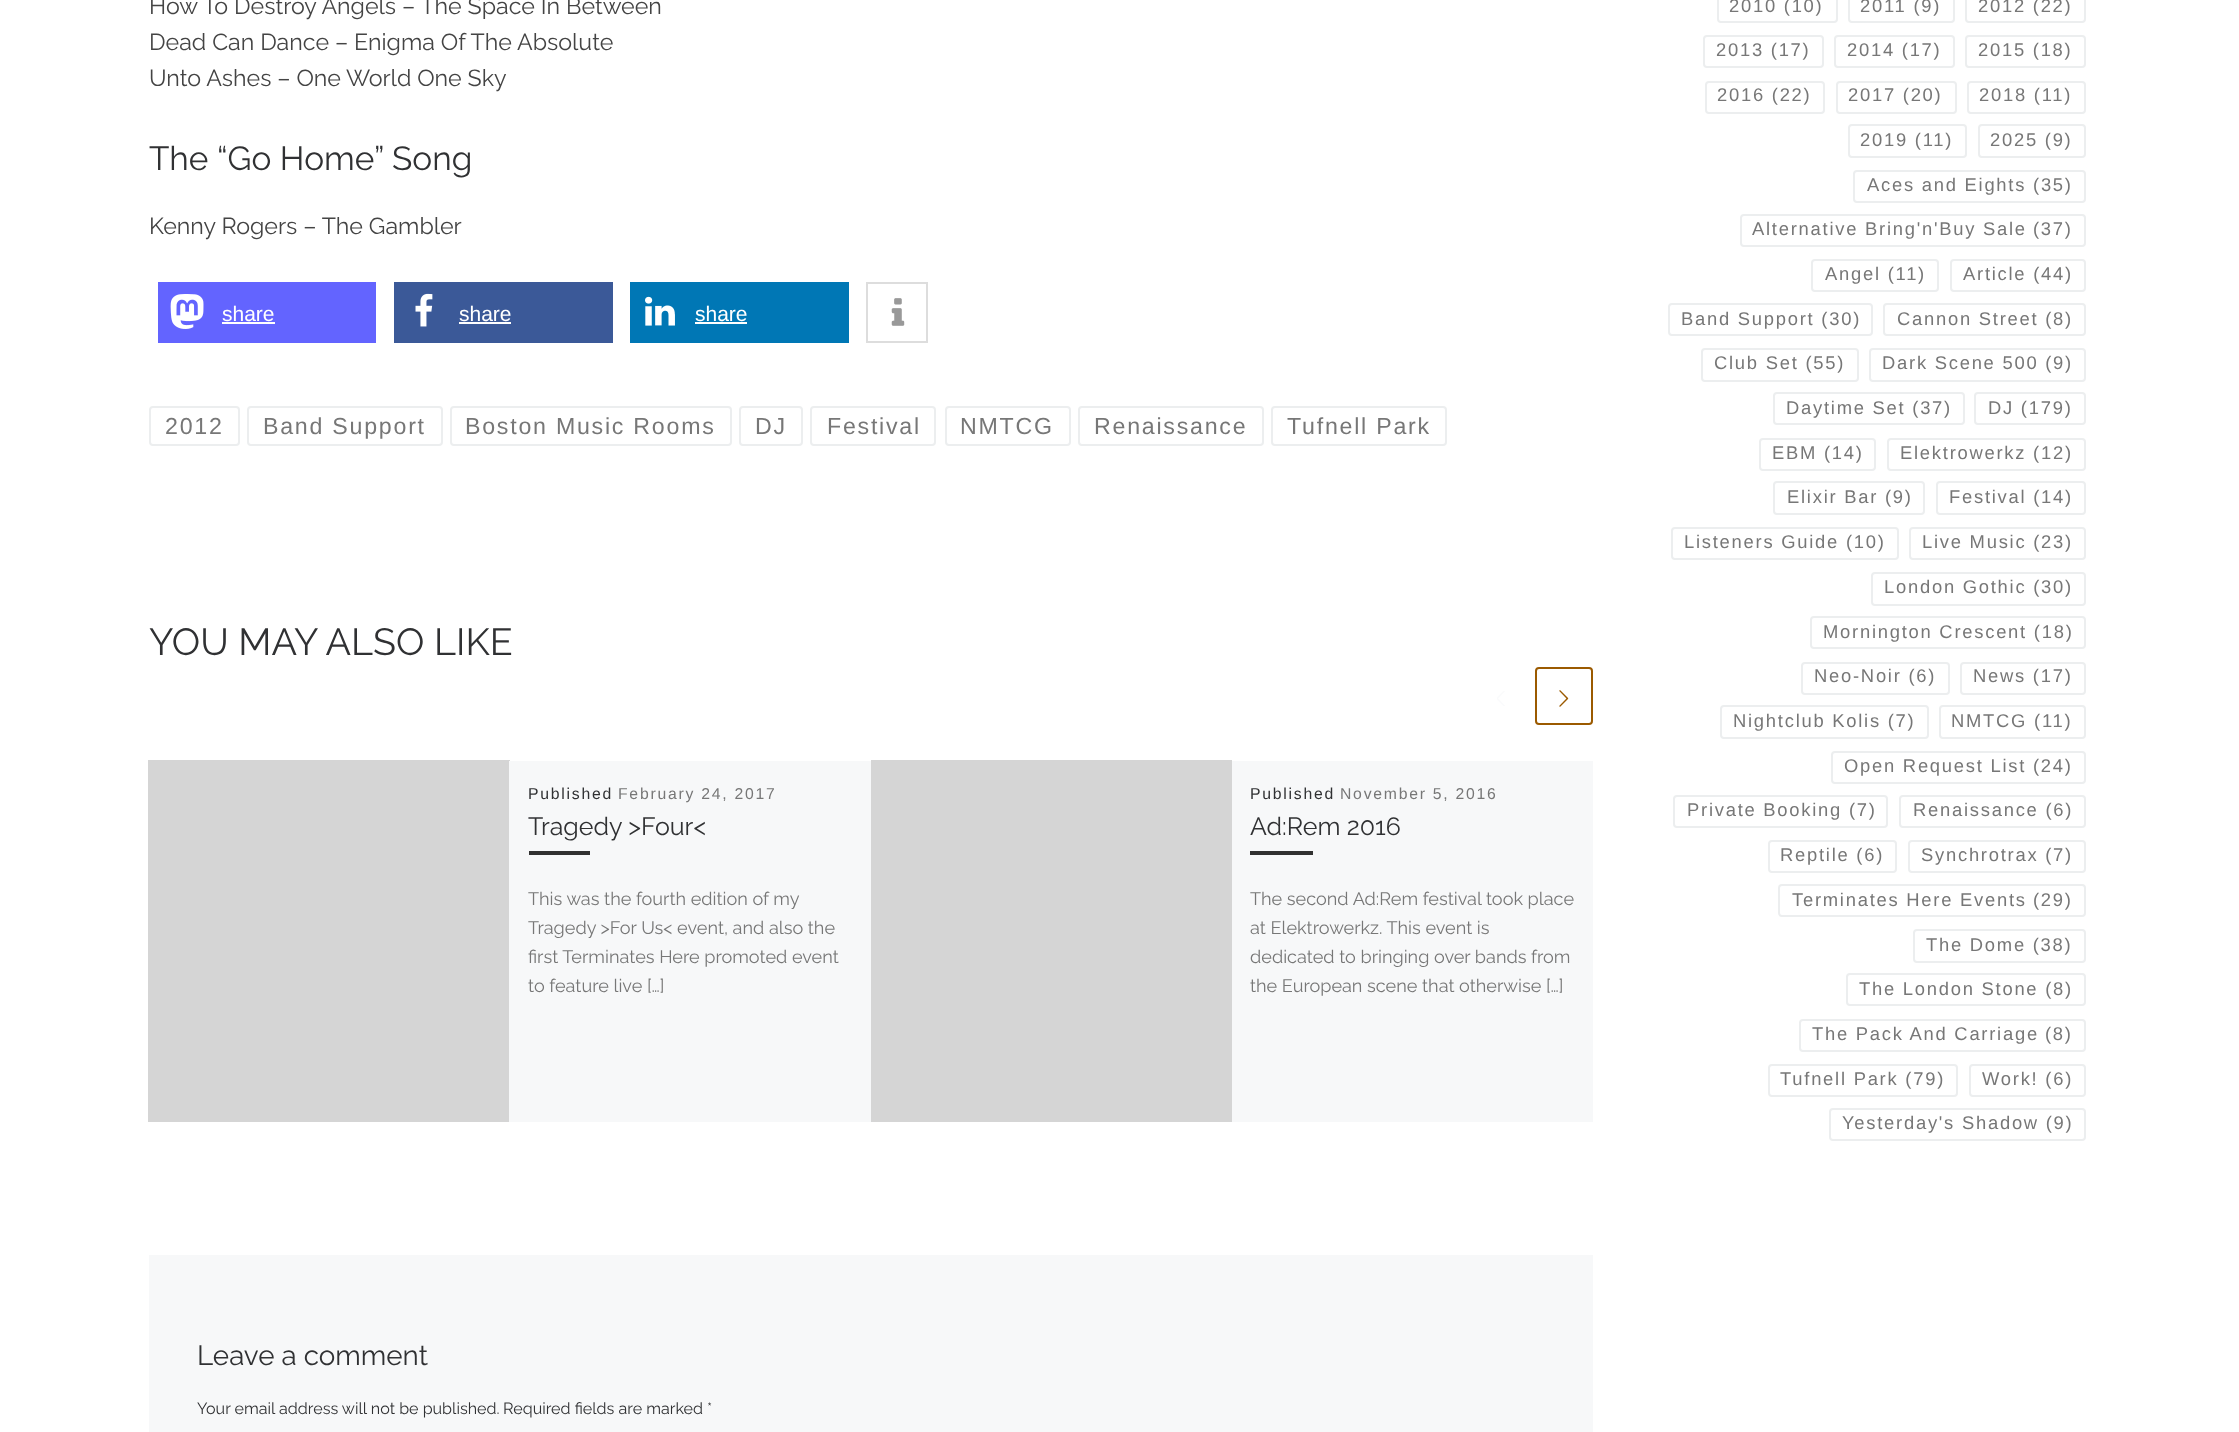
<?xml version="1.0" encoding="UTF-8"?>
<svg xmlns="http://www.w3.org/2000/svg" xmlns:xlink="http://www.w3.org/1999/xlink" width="2239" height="1432">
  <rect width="100%" height="100%" fill="#ffffff" />
  <rect x="158" y="282" width="218" height="61" fill="#6364ff" />
  <image x="170" y="294" width="34" height="35" xlink:href="image1.png" />
  <rect x="222" y="322" width="53" height="2" fill="#ffffff" />
  <rect x="394" y="282" width="219" height="61" fill="#3b5998" />
  <image x="415" y="293" width="18" height="34" xlink:href="image2.png" />
  <rect x="459" y="322" width="52" height="2" fill="#ffffff" />
  <rect x="630" y="282" width="219" height="61" fill="#0077b5" />
  <image x="645" y="296" width="30" height="30" xlink:href="image3.png" />
  <rect x="695" y="322" width="52" height="2" fill="#ffffff" />
  <rect x="867" y="283" width="60" height="59" fill="none" stroke="#dddddd" stroke-width="2" />
  <image x="891" y="298" width="14" height="28" xlink:href="image4.png" />
  <rect x="150" y="407" width="89" height="38" rx="3" fill="none" stroke="#eceeef" stroke-width="2" />
  <rect x="248" y="407" width="194" height="38" rx="3" fill="none" stroke="#eceeef" stroke-width="2" />
  <rect x="451" y="407" width="280" height="38" rx="3" fill="none" stroke="#eceeef" stroke-width="2" />
  <rect x="740" y="407" width="62" height="38" rx="3" fill="none" stroke="#eceeef" stroke-width="2" />
  <rect x="811" y="407" width="124" height="38" rx="3" fill="none" stroke="#eceeef" stroke-width="2" />
  <rect x="946" y="407" width="124" height="38" rx="3" fill="none" stroke="#eceeef" stroke-width="2" />
  <rect x="1079" y="407" width="184" height="38" rx="3" fill="none" stroke="#eceeef" stroke-width="2" />
  <rect x="1272" y="407" width="174" height="38" rx="3" fill="none" stroke="#eceeef" stroke-width="2" />
  <image x="1497" y="691" width="8" height="15" xlink:href="image5.png" />
  <rect x="1536" y="668" width="56" height="56" rx="3" fill="none" stroke="#9b5a00" stroke-width="2" />
  <image x="1559" y="690" width="10" height="17" xlink:href="image6.png" />
  <rect x="148" y="760" width="362" height="362" fill="#d5d5d5" />
  <rect x="509" y="761" width="362" height="361" fill="#f7f8f9" />
  <rect x="529" y="851" width="61" height="4" fill="#313131" />
  <rect x="1232" y="761" width="361" height="361" fill="#f7f8f9" />
  <rect x="871" y="760" width="361" height="362" fill="#d5d5d5" />
  <rect x="1250" y="851" width="63" height="4" fill="#313131" />
  <rect x="149" y="1255" width="1444" height="177" fill="#f7f8f9" />
  <rect x="1718" y="-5" width="119" height="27" rx="3" fill="none" stroke="#eceeef" stroke-width="2" />
  <rect x="1849" y="-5" width="105" height="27" rx="3" fill="none" stroke="#eceeef" stroke-width="2" />
  <rect x="1966" y="-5" width="119" height="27" rx="3" fill="none" stroke="#eceeef" stroke-width="2" />
  <rect x="1704" y="36" width="119" height="31" rx="3" fill="none" stroke="#eceeef" stroke-width="2" />
  <rect x="1835" y="36" width="119" height="31" rx="3" fill="none" stroke="#eceeef" stroke-width="2" />
  <rect x="1966" y="36" width="119" height="31" rx="3" fill="none" stroke="#eceeef" stroke-width="2" />
  <rect x="1706" y="82" width="118" height="31" rx="3" fill="none" stroke="#eceeef" stroke-width="2" />
  <rect x="1837" y="82" width="119" height="31" rx="3" fill="none" stroke="#eceeef" stroke-width="2" />
  <rect x="1968" y="82" width="117" height="31" rx="3" fill="none" stroke="#eceeef" stroke-width="2" />
  <rect x="1849" y="125" width="117" height="32" rx="3" fill="none" stroke="#eceeef" stroke-width="2" />
  <rect x="1979" y="125" width="106" height="32" rx="3" fill="none" stroke="#eceeef" stroke-width="2" />
  <rect x="1854" y="171" width="231" height="31" rx="3" fill="none" stroke="#eceeef" stroke-width="2" />
  <rect x="1741" y="215" width="344" height="31" rx="3" fill="none" stroke="#eceeef" stroke-width="2" />
  <rect x="1812" y="260" width="126" height="31" rx="3" fill="none" stroke="#eceeef" stroke-width="2" />
  <rect x="1951" y="260" width="134" height="31" rx="3" fill="none" stroke="#eceeef" stroke-width="2" />
  <rect x="1669" y="304" width="203" height="31" rx="3" fill="none" stroke="#eceeef" stroke-width="2" />
  <rect x="1884" y="304" width="201" height="31" rx="3" fill="none" stroke="#eceeef" stroke-width="2" />
  <rect x="1702" y="349" width="156" height="32" rx="3" fill="none" stroke="#eceeef" stroke-width="2" />
  <rect x="1870" y="349" width="215" height="32" rx="3" fill="none" stroke="#eceeef" stroke-width="2" />
  <rect x="1774" y="393" width="190" height="31" rx="3" fill="none" stroke="#eceeef" stroke-width="2" />
  <rect x="1975" y="393" width="110" height="31" rx="3" fill="none" stroke="#eceeef" stroke-width="2" />
  <rect x="1760" y="439" width="115" height="31" rx="3" fill="none" stroke="#eceeef" stroke-width="2" />
  <rect x="1888" y="439" width="197" height="31" rx="3" fill="none" stroke="#eceeef" stroke-width="2" />
  <rect x="1774" y="482" width="150" height="32" rx="3" fill="none" stroke="#eceeef" stroke-width="2" />
  <rect x="1937" y="482" width="148" height="32" rx="3" fill="none" stroke="#eceeef" stroke-width="2" />
  <rect x="1672" y="528" width="226" height="31" rx="3" fill="none" stroke="#eceeef" stroke-width="2" />
  <rect x="1910" y="528" width="175" height="31" rx="3" fill="none" stroke="#eceeef" stroke-width="2" />
  <rect x="1872" y="573" width="213" height="32" rx="3" fill="none" stroke="#eceeef" stroke-width="2" />
  <rect x="1811" y="617" width="274" height="31" rx="3" fill="none" stroke="#eceeef" stroke-width="2" />
  <rect x="1802" y="663" width="147" height="31" rx="3" fill="none" stroke="#eceeef" stroke-width="2" />
  <rect x="1961" y="663" width="124" height="31" rx="3" fill="none" stroke="#eceeef" stroke-width="2" />
  <rect x="1721" y="706" width="207" height="32" rx="3" fill="none" stroke="#eceeef" stroke-width="2" />
  <rect x="1940" y="706" width="145" height="32" rx="3" fill="none" stroke="#eceeef" stroke-width="2" />
  <rect x="1832" y="752" width="253" height="31" rx="3" fill="none" stroke="#eceeef" stroke-width="2" />
  <rect x="1674" y="796" width="213" height="31" rx="3" fill="none" stroke="#eceeef" stroke-width="2" />
  <rect x="1900" y="796" width="185" height="31" rx="3" fill="none" stroke="#eceeef" stroke-width="2" />
  <rect x="1769" y="841" width="127" height="31" rx="3" fill="none" stroke="#eceeef" stroke-width="2" />
  <rect x="1909" y="841" width="176" height="31" rx="3" fill="none" stroke="#eceeef" stroke-width="2" />
  <rect x="1779" y="885" width="306" height="31" rx="3" fill="none" stroke="#eceeef" stroke-width="2" />
  <rect x="1914" y="930" width="171" height="32" rx="3" fill="none" stroke="#eceeef" stroke-width="2" />
  <rect x="1847" y="974" width="238" height="31" rx="3" fill="none" stroke="#eceeef" stroke-width="2" />
  <rect x="1800" y="1020" width="285" height="31" rx="3" fill="none" stroke="#eceeef" stroke-width="2" />
  <rect x="1769" y="1065" width="188" height="31" rx="3" fill="none" stroke="#eceeef" stroke-width="2" />
  <rect x="1970" y="1065" width="115" height="31" rx="3" fill="none" stroke="#eceeef" stroke-width="2" />
  <rect x="1830" y="1109" width="255" height="31" rx="3" fill="none" stroke="#eceeef" stroke-width="2" />
  <text x="149" y="14" style="font-family: Raleway; font-size: 23.2px; font-weight: 100; fill: #444444">How To Destroy Angels – The Space In Between</text>
  <text x="149" y="50" style="font-family: Raleway; font-size: 23.2px; font-weight: 100; fill: #444444">Dead Can Dance – Enigma Of The Absolute</text>
  <text x="149" y="86" style="font-family: Raleway; font-size: 23.2px; font-weight: 100; fill: #444444">Unto Ashes – One World One Sky</text>
  <text x="149" y="170" style="font-family: Raleway; font-size: 33.4px; font-weight: 100; fill: #303133">The “Go Home” Song</text>
  <text x="149" y="234" style="font-family: Raleway; font-size: 23.2px; font-weight: 100; fill: #444444">Kenny Rogers – The Gambler</text>
  <text x="222" y="321" style="font-family: Liberation Sans; font-size: 21px; fill: #ffffff">share</text>
  <text x="459" y="321" style="font-family: Liberation Sans; font-size: 21px; fill: #ffffff">share</text>
  <text x="695" y="321" style="font-family: Liberation Sans; font-size: 21px; fill: #ffffff">share</text>
  <text x="165" y="434" style="font-family: Liberation Sans; font-size: 23.2px; letter-spacing: 1.75px; fill: #777777">2012</text>
  <text x="263" y="434" style="font-family: Liberation Sans; font-size: 23.2px; letter-spacing: 1.75px; fill: #777777">Band Support</text>
  <text x="465" y="434" style="font-family: Liberation Sans; font-size: 23.2px; letter-spacing: 1.75px; fill: #777777">Boston Music Rooms</text>
  <text x="755" y="434" style="font-family: Liberation Sans; font-size: 23.2px; letter-spacing: 1.75px; fill: #777777">DJ</text>
  <text x="827" y="434" style="font-family: Liberation Sans; font-size: 23.2px; letter-spacing: 1.75px; fill: #777777">Festival</text>
  <text x="960" y="434" style="font-family: Liberation Sans; font-size: 23.2px; letter-spacing: 1.75px; fill: #777777">NMTCG</text>
  <text x="1094" y="434" style="font-family: Liberation Sans; font-size: 23.2px; letter-spacing: 1.75px; fill: #777777">Renaissance</text>
  <text x="1287" y="434" style="font-family: Liberation Sans; font-size: 23.2px; letter-spacing: 1.75px; fill: #777777">Tufnell Park</text>
  <text x="149" y="655" style="font-family: Raleway; font-size: 37.75px; font-weight: 100; fill: #303133">YOU MAY ALSO LIKE</text>
  <text x="528" y="799" style="font-family: Liberation Sans; font-size: 15.75px; letter-spacing: 1.75px; fill: #303133">Published</text>
  <text x="618" y="799" style="font-family: Liberation Sans; font-size: 15.75px; letter-spacing: 1.75px; fill: #777777">February 24, 2017</text>
  <text x="528" y="835" style="font-family: Raleway; font-size: 25px; font-weight: 100; fill: #303133">Tragedy &gt;Four&lt;</text>
  <text x="528" y="905" style="font-family: Raleway; font-size: 18.1px; font-weight: 100; fill: #777777">This was the fourth edition of my</text>
  <text x="528" y="934" style="font-family: Raleway; font-size: 18.1px; font-weight: 100; fill: #777777">Tragedy &gt;For Us&lt; event, and also the</text>
  <text x="528" y="963" style="font-family: Raleway; font-size: 18.1px; font-weight: 100; fill: #777777">first Terminates Here promoted event</text>
  <text x="528" y="992" style="font-family: Raleway; font-size: 18.1px; font-weight: 100; fill: #777777">to feature live […]</text>
  <text x="1250" y="799" style="font-family: Liberation Sans; font-size: 15.75px; letter-spacing: 1.75px; fill: #303133">Published</text>
  <text x="1340" y="799" style="font-family: Liberation Sans; font-size: 15.75px; letter-spacing: 1.75px; fill: #777777">November 5, 2016</text>
  <text x="1250" y="835" style="font-family: Raleway; font-size: 25px; font-weight: 100; fill: #303133">Ad:Rem 2016</text>
  <text x="1250" y="905" style="font-family: Raleway; font-size: 18.1px; font-weight: 100; fill: #777777">The second Ad:Rem festival took place</text>
  <text x="1250" y="934" style="font-family: Raleway; font-size: 18.1px; font-weight: 100; fill: #777777">at Elektrowerkz. This event is</text>
  <text x="1250" y="963" style="font-family: Raleway; font-size: 18.1px; font-weight: 100; fill: #777777">dedicated to bringing over bands from</text>
  <text x="1250" y="992" style="font-family: Raleway; font-size: 18.1px; font-weight: 100; fill: #777777">the European scene that otherwise […]</text>
  <text x="197" y="1365" style="font-family: Raleway; font-size: 27.75px; font-weight: 100; fill: #303133">Leave a comment</text>
  <text x="197" y="1414" style="font-family: Raleway; font-size: 16.1px; font-weight: 100; fill: #303133">Your email address will not be published.</text>
  <text x="503" y="1414" style="font-family: Raleway; font-size: 16.1px; font-weight: 100; fill: #303133">Required fields are marked *</text>
  <text x="1729" y="12" style="font-family: Liberation Sans; font-size: 18.4px; letter-spacing: 1.75px; fill: #777777">2010 (10)</text>
  <text x="1860" y="12" style="font-family: Liberation Sans; font-size: 18.4px; letter-spacing: 1.75px; fill: #777777">2011 (9)</text>
  <text x="1978" y="12" style="font-family: Liberation Sans; font-size: 18.4px; letter-spacing: 1.75px; fill: #777777">2012 (22)</text>
  <text x="1716" y="56" style="font-family: Liberation Sans; font-size: 18.4px; letter-spacing: 1.75px; fill: #777777">2013 (17)</text>
  <text x="1847" y="56" style="font-family: Liberation Sans; font-size: 18.4px; letter-spacing: 1.75px; fill: #777777">2014 (17)</text>
  <text x="1978" y="56" style="font-family: Liberation Sans; font-size: 18.4px; letter-spacing: 1.75px; fill: #777777">2015 (18)</text>
  <text x="1717" y="101" style="font-family: Liberation Sans; font-size: 18.4px; letter-spacing: 1.75px; fill: #777777">2016 (22)</text>
  <text x="1848" y="101" style="font-family: Liberation Sans; font-size: 18.4px; letter-spacing: 1.75px; fill: #777777">2017 (20)</text>
  <text x="1979" y="101" style="font-family: Liberation Sans; font-size: 18.4px; letter-spacing: 1.75px; fill: #777777">2018 (11)</text>
  <text x="1860" y="146" style="font-family: Liberation Sans; font-size: 18.4px; letter-spacing: 1.75px; fill: #777777">2019 (11)</text>
  <text x="1990" y="146" style="font-family: Liberation Sans; font-size: 18.4px; letter-spacing: 1.75px; fill: #777777">2025 (9)</text>
  <text x="1867" y="191" style="font-family: Liberation Sans; font-size: 18.4px; letter-spacing: 1.75px; fill: #777777">Aces and Eights (35)</text>
  <text x="1752" y="235" style="font-family: Liberation Sans; font-size: 18.4px; letter-spacing: 1.75px; fill: #777777">Alternative Bring'n'Buy Sale</text>
  <text x="2033" y="235" style="font-family: Liberation Sans; font-size: 18.4px; letter-spacing: 1.75px; fill: #777777">(37)</text>
  <text x="1825" y="280" style="font-family: Liberation Sans; font-size: 18.4px; letter-spacing: 1.75px; fill: #777777">Angel (11)</text>
  <text x="1963" y="280" style="font-family: Liberation Sans; font-size: 18.4px; letter-spacing: 1.75px; fill: #777777">Article (44)</text>
  <text x="1681" y="325" style="font-family: Liberation Sans; font-size: 18.4px; letter-spacing: 1.75px; fill: #777777">Band Support (30)</text>
  <text x="1897" y="325" style="font-family: Liberation Sans; font-size: 18.4px; letter-spacing: 1.75px; fill: #777777">Cannon Street (8)</text>
  <text x="1714" y="369" style="font-family: Liberation Sans; font-size: 18.4px; letter-spacing: 1.75px; fill: #777777">Club Set (55)</text>
  <text x="1882" y="369" style="font-family: Liberation Sans; font-size: 18.4px; letter-spacing: 1.75px; fill: #777777">Dark Scene 500 (9)</text>
  <text x="1786" y="414" style="font-family: Liberation Sans; font-size: 18.4px; letter-spacing: 1.75px; fill: #777777">Daytime Set (37)</text>
  <text x="1988" y="414" style="font-family: Liberation Sans; font-size: 18.4px; letter-spacing: 1.75px; fill: #777777">DJ (179)</text>
  <text x="1772" y="459" style="font-family: Liberation Sans; font-size: 18.4px; letter-spacing: 1.75px; fill: #777777">EBM (14)</text>
  <text x="1900" y="459" style="font-family: Liberation Sans; font-size: 18.4px; letter-spacing: 1.75px; fill: #777777">Elektrowerkz (12)</text>
  <text x="1787" y="503" style="font-family: Liberation Sans; font-size: 18.4px; letter-spacing: 1.75px; fill: #777777">Elixir Bar (9)</text>
  <text x="1949" y="503" style="font-family: Liberation Sans; font-size: 18.4px; letter-spacing: 1.75px; fill: #777777">Festival (14)</text>
  <text x="1684" y="548" style="font-family: Liberation Sans; font-size: 18.4px; letter-spacing: 1.75px; fill: #777777">Listeners Guide (10)</text>
  <text x="1922" y="548" style="font-family: Liberation Sans; font-size: 18.4px; letter-spacing: 1.75px; fill: #777777">Live Music (23)</text>
  <text x="1884" y="593" style="font-family: Liberation Sans; font-size: 18.4px; letter-spacing: 1.75px; fill: #777777">London Gothic (30)</text>
  <text x="1823" y="638" style="font-family: Liberation Sans; font-size: 18.4px; letter-spacing: 1.75px; fill: #777777">Mornington Crescent (18)</text>
  <text x="1814" y="682" style="font-family: Liberation Sans; font-size: 18.4px; letter-spacing: 1.75px; fill: #777777">Neo-Noir (6)</text>
  <text x="1973" y="682" style="font-family: Liberation Sans; font-size: 18.4px; letter-spacing: 1.75px; fill: #777777">News (17)</text>
  <text x="1733" y="727" style="font-family: Liberation Sans; font-size: 18.4px; letter-spacing: 1.75px; fill: #777777">Nightclub Kolis (7)</text>
  <text x="1951" y="727" style="font-family: Liberation Sans; font-size: 18.4px; letter-spacing: 1.75px; fill: #777777">NMTCG (11)</text>
  <text x="1844" y="772" style="font-family: Liberation Sans; font-size: 18.4px; letter-spacing: 1.75px; fill: #777777">Open Request List (24)</text>
  <text x="1687" y="816" style="font-family: Liberation Sans; font-size: 18.4px; letter-spacing: 1.75px; fill: #777777">Private Booking (7)</text>
  <text x="1913" y="816" style="font-family: Liberation Sans; font-size: 18.4px; letter-spacing: 1.75px; fill: #777777">Renaissance (6)</text>
  <text x="1780" y="861" style="font-family: Liberation Sans; font-size: 18.4px; letter-spacing: 1.75px; fill: #777777">Reptile (6)</text>
  <text x="1921" y="861" style="font-family: Liberation Sans; font-size: 18.4px; letter-spacing: 1.75px; fill: #777777">Synchrotrax (7)</text>
  <text x="1792" y="906" style="font-family: Liberation Sans; font-size: 18.4px; letter-spacing: 1.75px; fill: #777777">Terminates Here Events</text>
  <text x="2033" y="906" style="font-family: Liberation Sans; font-size: 18.4px; letter-spacing: 1.75px; fill: #777777">(29)</text>
  <text x="1926" y="951" style="font-family: Liberation Sans; font-size: 18.4px; letter-spacing: 1.75px; fill: #777777">The Dome (38)</text>
  <text x="1859" y="995" style="font-family: Liberation Sans; font-size: 18.4px; letter-spacing: 1.75px; fill: #777777">The London Stone (8)</text>
  <text x="1812" y="1040" style="font-family: Liberation Sans; font-size: 18.4px; letter-spacing: 1.75px; fill: #777777">The Pack And Carriage</text>
  <text x="2045" y="1040" style="font-family: Liberation Sans; font-size: 18.4px; letter-spacing: 1.75px; fill: #777777">(8)</text>
  <text x="1780" y="1085" style="font-family: Liberation Sans; font-size: 18.4px; letter-spacing: 1.75px; fill: #777777">Tufnell Park (79)</text>
  <text x="1982" y="1085" style="font-family: Liberation Sans; font-size: 18.4px; letter-spacing: 1.75px; fill: #777777">Work! (6)</text>
  <text x="1842" y="1129" style="font-family: Liberation Sans; font-size: 18.4px; letter-spacing: 1.75px; fill: #777777">Yesterday's Shadow (9)</text>
</svg>
